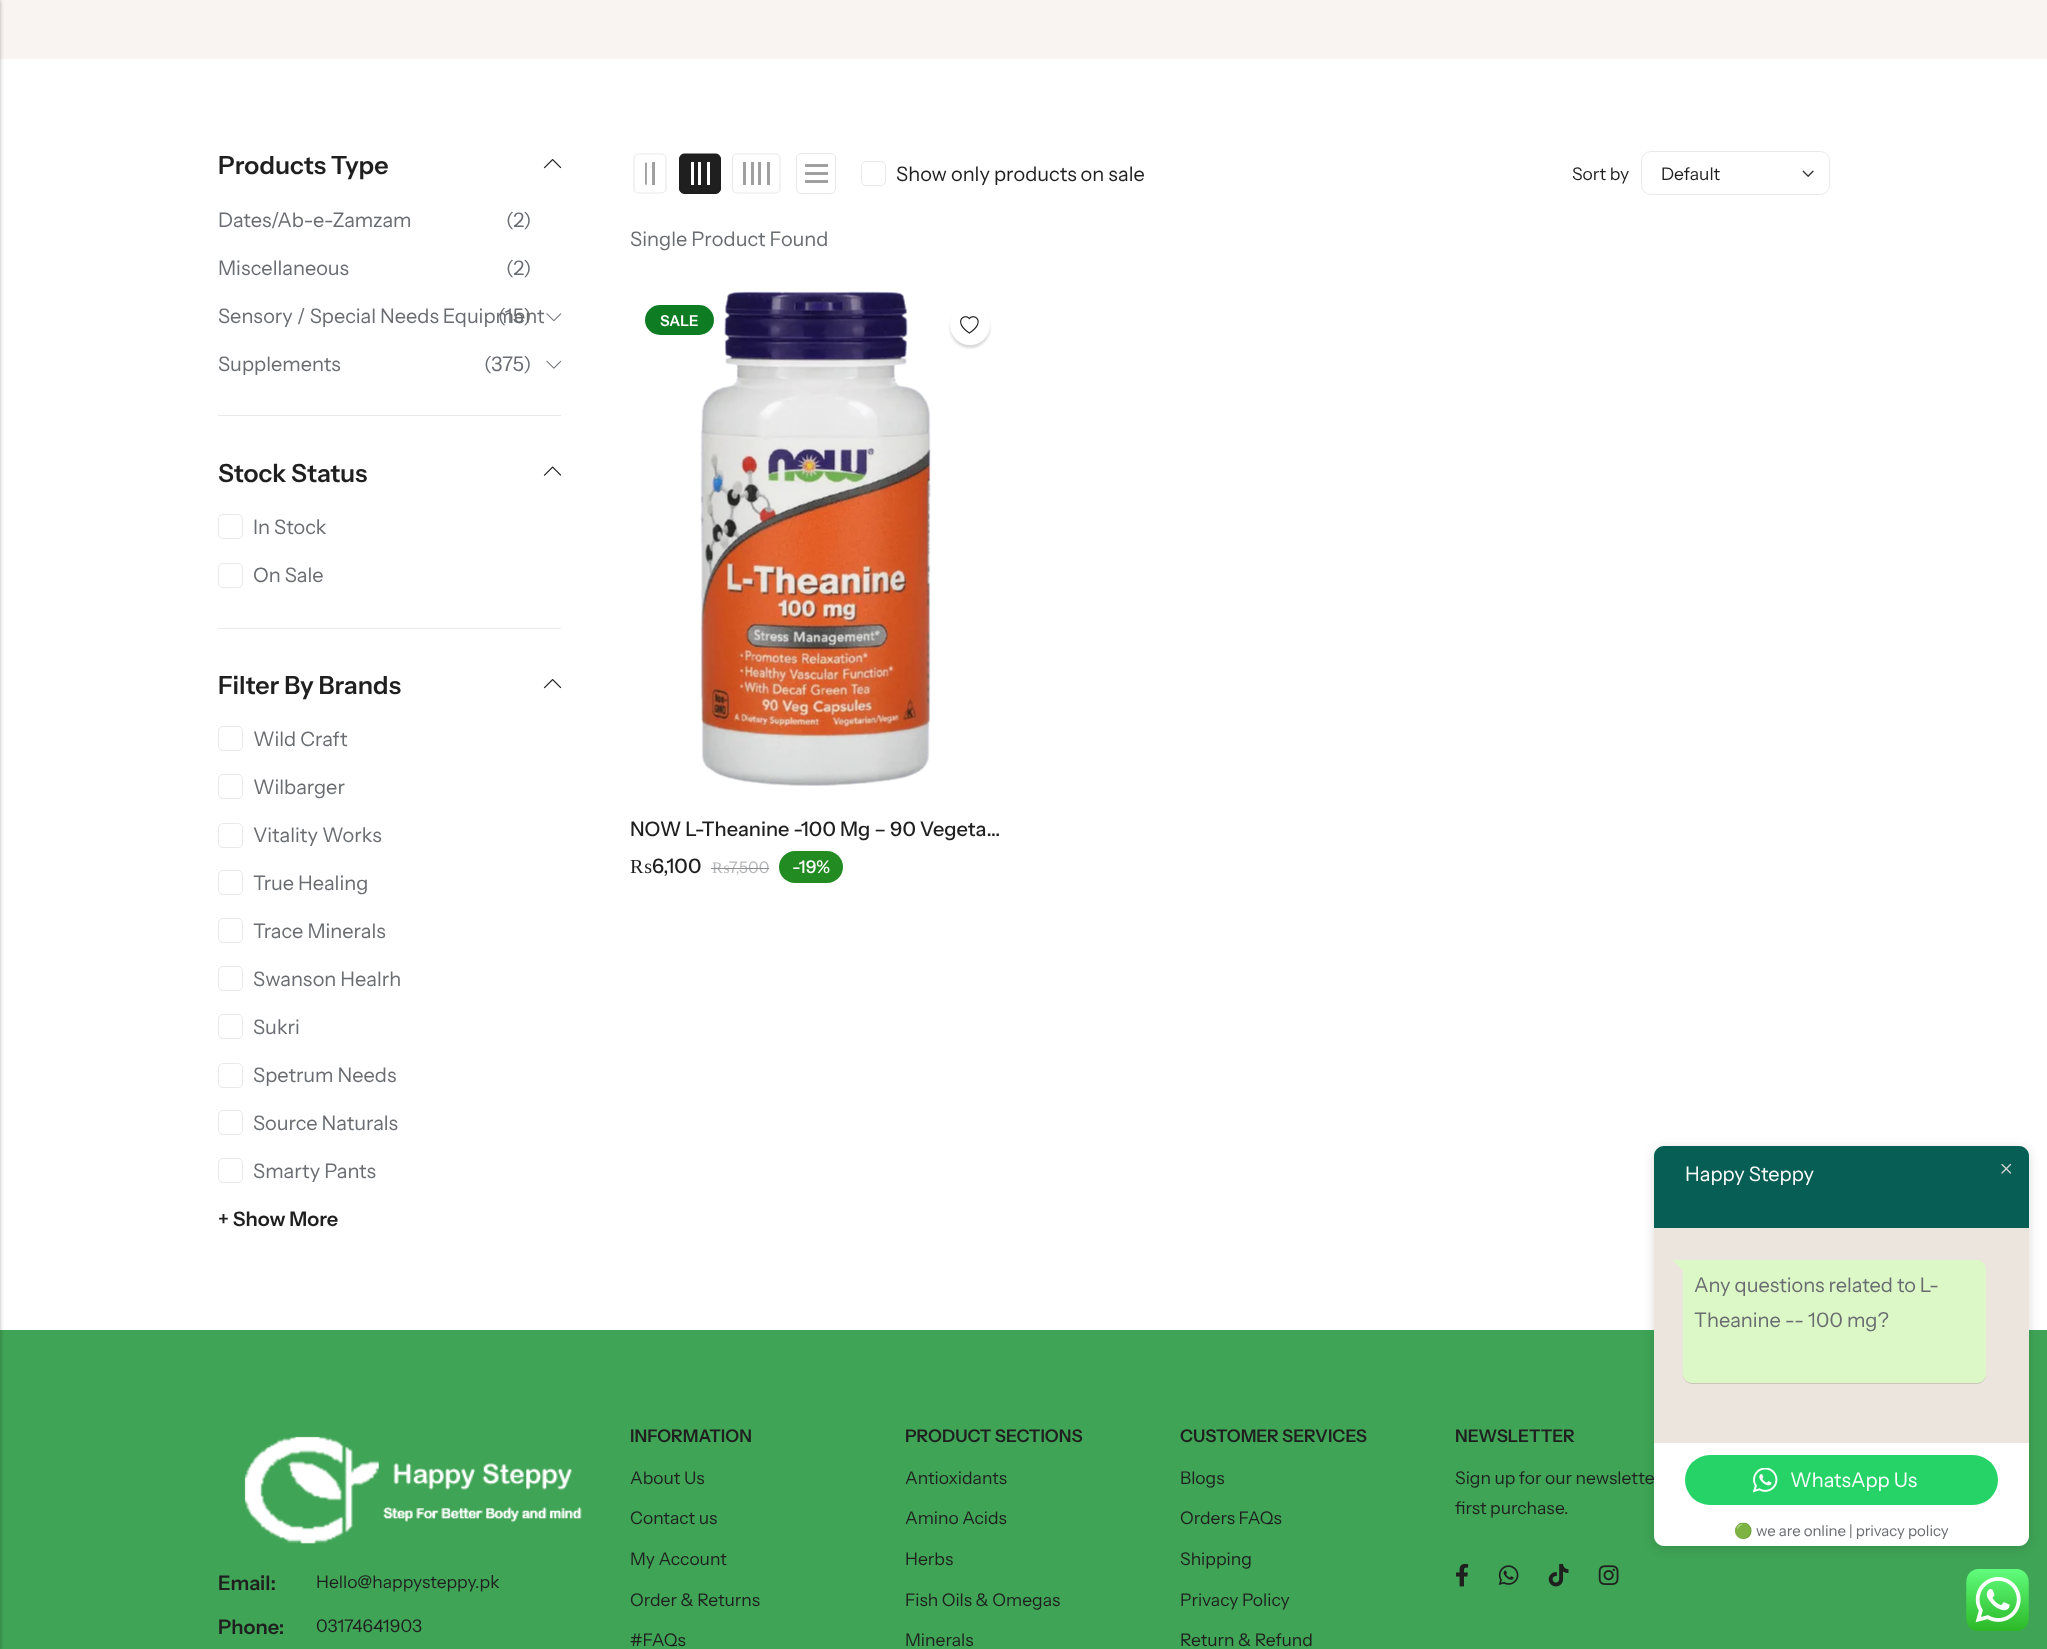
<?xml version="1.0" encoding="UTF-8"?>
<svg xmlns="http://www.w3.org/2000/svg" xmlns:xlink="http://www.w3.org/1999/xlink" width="2047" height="1649">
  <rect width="100%" height="100%" fill="#ffffff" />
  <rect width="2047" height="59" fill="#f9f3f1" />
  <rect y="1330" width="2047" height="319" fill="#3fa455" />
  <rect x="-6" width="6" height="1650" fill="#000000" fill-opacity="0.15" filter="blur(2px)" />
  <rect x="-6" width="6" height="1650" fill="#000000" fill-opacity="0.15" filter="blur(2px)" />
  <rect x="218" y="415" width="343" height="1" fill="#e9e9e9" />
  <image x="543" y="159" width="19" height="10" xlink:href="image1.png" />
  <image x="546" y="313" width="16" height="9" xlink:href="image2.png" />
  <image x="546" y="360" width="16" height="9" xlink:href="image3.png" />
  <rect x="218" y="628" width="343" height="1" fill="#e9e9e9" />
  <image x="543" y="466" width="19" height="10" xlink:href="image4.png" />
  <rect x="218.5" y="514.5" width="24" height="24" rx="4.5" fill="none" stroke="#e9e9e9" />
  <rect x="218.5" y="563.5" width="24" height="24" rx="4.5" fill="none" stroke="#e9e9e9" />
  <image x="543" y="679" width="19" height="10" xlink:href="image1.png" />
  <rect x="218.5" y="726.5" width="24" height="24" rx="4.5" fill="none" stroke="#e9e9e9" />
  <rect x="218.5" y="774.5" width="24" height="24" rx="4.5" fill="none" stroke="#e9e9e9" />
  <rect x="218.5" y="823.5" width="24" height="24" rx="4.5" fill="none" stroke="#e9e9e9" />
  <rect x="218.5" y="870.5" width="24" height="24" rx="4.5" fill="none" stroke="#e9e9e9" />
  <rect x="218.5" y="918.5" width="24" height="24" rx="4.5" fill="none" stroke="#e9e9e9" />
  <rect x="218.5" y="966.5" width="24" height="24" rx="4.5" fill="none" stroke="#e9e9e9" />
  <rect x="218.5" y="1014.5" width="24" height="24" rx="4.5" fill="none" stroke="#e9e9e9" />
  <rect x="218.5" y="1063.5" width="24" height="24" rx="4.5" fill="none" stroke="#e9e9e9" />
  <rect x="218.5" y="1110.5" width="24" height="24" rx="4.5" fill="none" stroke="#e9e9e9" />
  <rect x="218.5" y="1158.5" width="24" height="24" rx="4.5" fill="none" stroke="#e9e9e9" />
  <path d="M 666 158.5 v 30 c 0 2.5 -2 4.5 -4.5 4.5 h -23 c -2.5 0 -4.5 -2 -4.5 -4.5 v -30 c 0 -2.5 2 -4.5 4.5 -4.5 h 23 c 2.5 0 4.5 2 4.5 4.5 z" fill="none" stroke="#e9e9e9" stroke-width="1.2" />
  <rect x="652" y="162" width="3" height="23" fill="#a0a0a0" />
  <image x="645" y="162" width="2" height="23" xlink:href="image5.png" />
  <path d="M 721 159 v 30 c 0 2 -3 5 -5 5 h -32 c -2 0 -5 -3 -5 -5 v -30 c 0 -3 3 -5 5 -5 h 32 c 2 0 5 2 5 5 z" fill="#1f1f1f" />
  <path d="M 720 158.5 v 30 c 0 2.5 -2 4.5 -4.5 4.5 h -31 c -2.5 0 -4.5 -2 -4.5 -4.5 v -30 c 0 -2.5 2 -4.5 4.5 -4.5 h 31 c 2.5 0 4.5 2 4.5 4.5 z" fill="none" stroke="#1f1f1f" stroke-width="1.2" />
  <rect x="707" y="162" width="3" height="23" fill="#ffffff" />
  <rect x="698" y="162" width="3" height="23" fill="#ffffff" />
  <rect x="691" y="162" width="3" height="23" fill="#ffffff" />
  <path d="M 780 158.5 v 30 c 0 2.5 -2 4.5 -4.5 4.5 h -38.5 c -2.5 0 -4.5 -2 -4.5 -4.5 v -30 c 0 -2.5 2 -4.5 4.5 -4.5 h 38.5 c 2.5 0 4.5 2 4.5 4.5 z" fill="none" stroke="#e9e9e9" stroke-width="1.2" />
  <rect x="767" y="162" width="3" height="23" fill="#a0a0a0" />
  <rect x="758" y="162" width="3" height="23" fill="#a0a0a0" />
  <rect x="751" y="162" width="3" height="23" fill="#a0a0a0" />
  <rect x="743" y="162" width="3" height="23" fill="#a0a0a0" />
  <rect x="796.5" y="153.5" width="39" height="40" rx="4.5" fill="none" stroke="#e9e9e9" />
  <rect x="805" y="164" width="23" height="3" fill="#a0a0a0" />
  <rect x="805" y="172" width="23" height="3" fill="#a0a0a0" />
  <rect x="805" y="180" width="23" height="3" fill="#a0a0a0" />
  <rect x="861.5" y="161.5" width="24" height="24" rx="4.5" fill="none" stroke="#e9e9e9" />
  <image x="1802" y="170" width="12" height="8" xlink:href="image6.png" />
  <rect x="1641.5" y="151.5" width="188" height="43" rx="9.5" fill="none" stroke="#e9e9e9" />
  <image x="700" y="291" width="231" height="495" xlink:href="image7.png" />
  <rect x="645" y="305" width="69" height="30" rx="15" fill="#0d7c23" />
  <rect x="950" y="308" width="40" height="40" rx="20" fill="#000000" fill-opacity="0.15" filter="blur(1px)" />
  <circle cx="970" cy="325" r="20" fill="#ffffff" />
  <image x="960" y="316" width="19" height="18" xlink:href="image8.png" />
  <rect x="779" y="851" width="64" height="32" rx="16" fill="#228b22" />
  <image x="1456" y="1563" width="13" height="24" xlink:href="image9.png" />
  <image x="1498" y="1565" width="21" height="20" xlink:href="image10.png" />
  <image x="1548" y="1563" width="21" height="24" xlink:href="image11.png" />
  <image x="1598" y="1565" width="21" height="20" xlink:href="image12.png" />
  <image x="244" y="1436" width="338" height="108" xlink:href="image13.png" />
  <rect x="1654" y="1148" width="375" height="400" rx="10" fill="#000000" fill-opacity="0.14" filter="blur(5.5px)" />
  <path d="M 1664 1146 h 355 c 5.5 0 10 4.5 10 10 v 73 h -375 v -73 c 0 -5.5 4.5 -10 10 -10 z" fill="#075e54" />
  <rect x="1654" y="1228" width="375" height="215" fill="#ece5dd" />
  <rect x="1683" y="1261" width="303" height="123" rx="9" fill="#000000" fill-opacity="0.14" filter="blur(0.5px)" />
  <path d="M 1683 1260 h 294 c 5 0 9 4 9 9 v 105 c 0 5 -4 9 -9 9 h -285 c -5 0 -9 -4 -9 -9 z" fill="#dcf8c6" />
  <path d="M 1673 1260 h 10.5 v 11 l -10.5 -10.5 z" fill="#dcf8c6" />
  <rect x="1654" y="1443" width="375" height="72" fill="#ffffff" />
  <rect x="1685" y="1455" width="313" height="50" rx="25" fill="#25d366" />
  <image x="1753" y="1468" width="25" height="25" xlink:href="image14.png" />
  <path d="M 1654 1515 h 375 v 21 c 0 5.5 -4.5 10 -10 10 h -355 c -5.5 0 -10 -4.5 -10 -10 z" fill="#ffffff" />
  <image x="2001" y="1163" width="11" height="11" xlink:href="image15.png" />
  <image x="1966" y="1569" width="63" height="62" xlink:href="image16.png" />
  <text x="218" y="174" style="font-family: Instrument Sans; font-size: 25px; font-weight: 600; fill: #1f1f1f">Products Type</text>
  <text x="218" y="227" style="font-family: Instrument Sans; font-size: 20px; fill: #696c70">Dates/Ab-e-Zamzam</text>
  <text x="506" y="227" style="font-family: Instrument Sans; font-size: 20px; fill: #696c70">(2)</text>
  <text x="218" y="275" style="font-family: Instrument Sans; font-size: 20px; fill: #696c70">Miscellaneous</text>
  <text x="506" y="275" style="font-family: Instrument Sans; font-size: 20px; fill: #696c70">(2)</text>
  <text x="218" y="323" style="font-family: Instrument Sans; font-size: 20px; fill: #696c70">Sensory / Special Needs Equipment</text>
  <text x="498" y="323" style="font-family: Instrument Sans; font-size: 20px; fill: #696c70">(15)</text>
  <text x="218" y="371" style="font-family: Instrument Sans; font-size: 20px; fill: #696c70">Supplements</text>
  <text x="484" y="371" style="font-family: Instrument Sans; font-size: 20px; fill: #696c70">(375)</text>
  <text x="218" y="482" style="font-family: Instrument Sans; font-size: 25px; font-weight: 600; fill: #1f1f1f">Stock Status</text>
  <text x="253" y="534" style="font-family: Instrument Sans; font-size: 20px; fill: #696c70">In Stock</text>
  <text x="253" y="582" style="font-family: Instrument Sans; font-size: 20px; fill: #696c70">On Sale</text>
  <text x="218" y="694" style="font-family: Instrument Sans; font-size: 25px; font-weight: 600; fill: #1f1f1f">Filter By Brands</text>
  <text x="253" y="746" style="font-family: Instrument Sans; font-size: 20px; fill: #696c70">Wild Craft</text>
  <text x="253" y="794" style="font-family: Instrument Sans; font-size: 20px; fill: #696c70">Wilbarger</text>
  <text x="253" y="842" style="font-family: Instrument Sans; font-size: 20px; fill: #696c70">Vitality Works</text>
  <text x="253" y="890" style="font-family: Instrument Sans; font-size: 20px; fill: #696c70">True Healing</text>
  <text x="253" y="938" style="font-family: Instrument Sans; font-size: 20px; fill: #696c70">Trace Minerals</text>
  <text x="253" y="986" style="font-family: Instrument Sans; font-size: 20px; fill: #696c70">Swanson Healrh</text>
  <text x="253" y="1034" style="font-family: Instrument Sans; font-size: 20px; fill: #696c70">Sukri</text>
  <text x="253" y="1082" style="font-family: Instrument Sans; font-size: 20px; fill: #696c70">Spetrum Needs</text>
  <text x="253" y="1130" style="font-family: Instrument Sans; font-size: 20px; fill: #696c70">Source Naturals</text>
  <text x="253" y="1178" style="font-family: Instrument Sans; font-size: 20px; fill: #696c70">Smarty Pants</text>
  <text x="218" y="1226" style="font-family: Instrument Sans; font-size: 20px; font-weight: 600; fill: #1f1f1f">+ Show More</text>
  <text x="896" y="181" style="font-family: Instrument Sans; font-size: 20px; fill: #1f1f1f">Show only products on sale</text>
  <text x="1572" y="180" style="font-family: Instrument Sans; font-size: 17.5px; fill: #1f1f1f">Sort by</text>
  <text x="1661" y="180" style="font-family: Instrument Sans; font-size: 17.5px; fill: #1f1f1f">Default</text>
  <text x="630" y="246" style="font-family: Instrument Sans; font-size: 20px; fill: #696c70">Single Product Found</text>
  <text x="660" y="326" style="font-family: Instrument Sans; font-size: 15px; font-weight: 600; fill: #ffffff">SALE</text>
  <text x="630" y="836" style="font-family: Instrument Sans; font-size: 20px; font-weight: 500; fill: #1f1f1f">NOW L-Theanine -100 Mg – 90 Vegeta…</text>
  <text x="630" y="873" style="font-family: Liberation Serif; font-size: 20px; fill: #1f1f1f">₨</text>
  <text x="652" y="873" style="font-family: Instrument Sans; font-size: 20px; font-weight: 500; fill: #1f1f1f">6,100</text>
  <text x="712" y="873" style="font-family: Liberation Serif; font-size: 16px; fill: #b4b6b8">₨</text>
  <text x="729" y="873" style="font-family: Instrument Sans; font-size: 16px; fill: #b4b6b8">7,500</text>
  <rect x="711" y="868" width="18" height="1" fill="#8f8f8f" />
  <rect x="729" y="868" width="40" height="1" fill="#8f8f8f" />
  <text x="792" y="873" style="font-family: Instrument Sans; font-size: 17.5px; font-weight: 500; fill: #ffffff">-19%</text>
  <text x="630" y="1442" style="font-family: Instrument Sans; font-size: 17.5px; font-weight: 600; fill: #1f1f1f">INFORMATION</text>
  <text x="630" y="1484" style="font-family: Instrument Sans; font-size: 17.5px; fill: #1f1f1f">About Us</text>
  <text x="630" y="1524" style="font-family: Instrument Sans; font-size: 17.5px; fill: #1f1f1f">Contact us</text>
  <text x="630" y="1565" style="font-family: Instrument Sans; font-size: 17.5px; fill: #1f1f1f">My Account</text>
  <text x="630" y="1606" style="font-family: Instrument Sans; font-size: 17.5px; fill: #1f1f1f">Order &amp; Returns</text>
  <text x="630" y="1646" style="font-family: Instrument Sans; font-size: 17.5px; fill: #1f1f1f">#FAQs</text>
  <text x="905" y="1442" style="font-family: Instrument Sans; font-size: 17.5px; font-weight: 600; fill: #1f1f1f">PRODUCT SECTIONS</text>
  <text x="905" y="1484" style="font-family: Instrument Sans; font-size: 17.5px; fill: #1f1f1f">Antioxidants</text>
  <text x="905" y="1524" style="font-family: Instrument Sans; font-size: 17.5px; fill: #1f1f1f">Amino Acids</text>
  <text x="905" y="1565" style="font-family: Instrument Sans; font-size: 17.5px; fill: #1f1f1f">Herbs</text>
  <text x="905" y="1606" style="font-family: Instrument Sans; font-size: 17.5px; fill: #1f1f1f">Fish Oils &amp; Omegas</text>
  <text x="905" y="1646" style="font-family: Instrument Sans; font-size: 17.5px; fill: #1f1f1f">Minerals</text>
  <text x="1180" y="1442" style="font-family: Instrument Sans; font-size: 17.5px; font-weight: 600; fill: #1f1f1f">CUSTOMER SERVICES</text>
  <text x="1180" y="1484" style="font-family: Instrument Sans; font-size: 17.5px; fill: #1f1f1f">Blogs</text>
  <text x="1180" y="1524" style="font-family: Instrument Sans; font-size: 17.5px; fill: #1f1f1f">Orders FAQs</text>
  <text x="1180" y="1565" style="font-family: Instrument Sans; font-size: 17.5px; fill: #1f1f1f">Shipping</text>
  <text x="1180" y="1606" style="font-family: Instrument Sans; font-size: 17.5px; fill: #1f1f1f">Privacy Policy</text>
  <text x="1180" y="1646" style="font-family: Instrument Sans; font-size: 17.5px; fill: #1f1f1f">Return &amp; Refund</text>
  <text x="1455" y="1442" style="font-family: Instrument Sans; font-size: 17.5px; font-weight: 600; fill: #1f1f1f">NEWSLETTER</text>
  <text x="1455" y="1484" style="font-family: Instrument Sans; font-size: 17.5px; fill: #1f1f1f">Sign up for our newslette</text>
  <text x="1455" y="1514" style="font-family: Instrument Sans; font-size: 17.5px; fill: #1f1f1f">first purchase.</text>
  <text x="218" y="1590" style="font-family: Instrument Sans; font-size: 20px; font-weight: 600; fill: #1f1f1f">Email:</text>
  <text x="316" y="1588" style="font-family: Instrument Sans; font-size: 17.5px; fill: #1f1f1f">Hello@happysteppy.pk</text>
  <text x="218" y="1634" style="font-family: Instrument Sans; font-size: 20px; font-weight: 600; fill: #1f1f1f">Phone:</text>
  <text x="316" y="1632" style="font-family: Instrument Sans; font-size: 17.5px; fill: #1f1f1f">03174641903</text>
  <text x="1685" y="1181" style="font-family: Instrument Sans; font-size: 20px; fill: #ffffff">Happy Steppy</text>
  <text x="1694" y="1292" style="font-family: Instrument Sans; font-size: 20px; fill: #696c70">Any questions related to L-</text>
  <text x="1694" y="1327" style="font-family: Instrument Sans; font-size: 20px; fill: #696c70">Theanine -- 100 mg?</text>
  <text x="1790" y="1487" style="font-family: Instrument Sans; font-size: 20px; fill: #ffffff">WhatsApp Us</text>
  <text x="1734" y="1536" style="font-family: Noto Color Emoji; font-size: 15px; fill: #696c70">🟢</text>
  <text x="1756" y="1536" style="font-family: Instrument Sans; font-size: 15px; fill: #696c70">we are online | privacy policy</text>
</svg>
